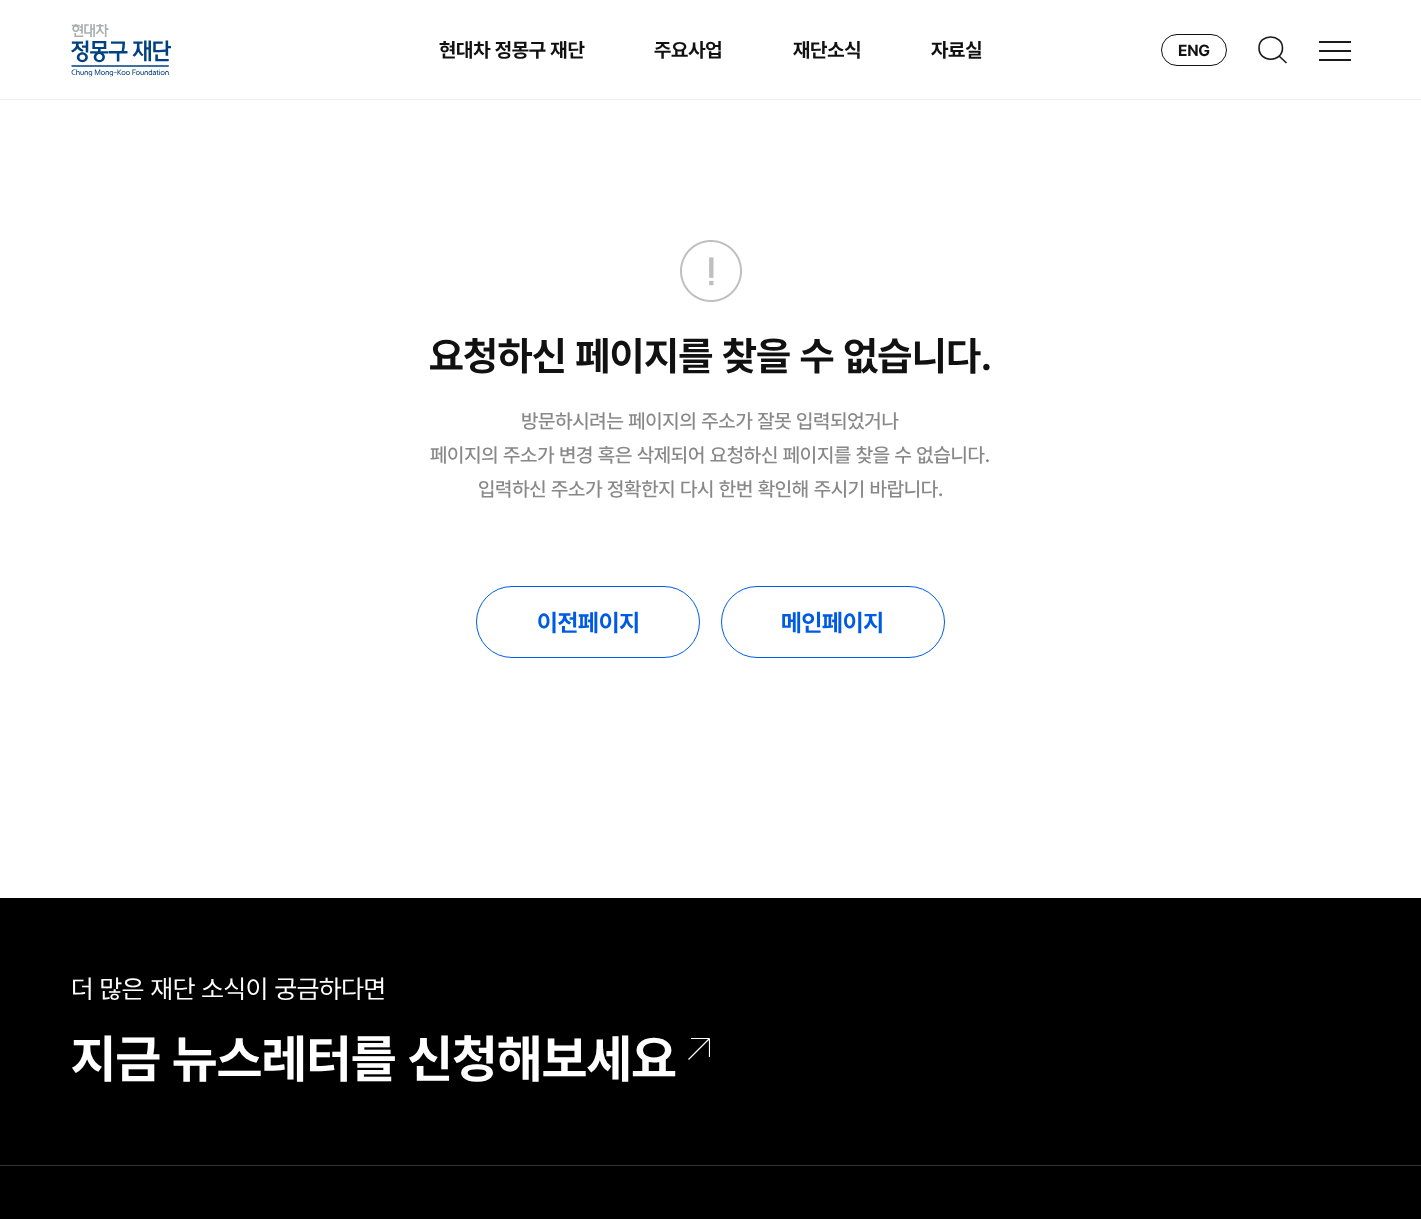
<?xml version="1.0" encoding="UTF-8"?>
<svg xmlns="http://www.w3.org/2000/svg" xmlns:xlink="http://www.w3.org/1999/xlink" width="1421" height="1219">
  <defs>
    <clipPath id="clip1"><rect x="688" y="1038" width="22" height="22" /></clipPath>
  </defs>
  <rect width="100%" height="100%" fill="#ffffff" />
  <rect y="99" width="1421" height="1" fill="#eeeeee" />
  <image x="71" y="24" width="100" height="53" xlink:href="image1.png" />
  <rect x="1161.5" y="34.5" width="65" height="31" rx="15.5" fill="none" stroke="#111111" />
  <path d="M 1259 48 c 0 15 23.5 15 23.5 0 c 0 -14.5 -23.5 -15 -23.5 0 z m 19.5 7.5 l 8 7.5" fill="none" stroke="#1a1a1a" stroke-width="1.6" />
  <rect x="1319" y="41" width="32" height="2" fill="#1a1a1a" />
  <rect x="1319" y="50" width="32" height="2" fill="#1a1a1a" />
  <rect x="1319" y="59" width="32" height="2" fill="#1a1a1a" />
  <image x="680" y="240" width="62" height="62" xlink:href="image2.png" />
  <rect x="476.5" y="586.5" width="223" height="71" rx="35.5" fill="none" stroke="#005be4" />
  <rect x="721.5" y="586.5" width="223" height="71" rx="35.5" fill="none" stroke="#005be4" />
  <rect y="898" width="1421" height="321" fill="#000000" />
  <g clip-path="url(#clip1)">
    <path d="M 691 1038.5 h 18.5 m 0 0 v 18.5 m 0 -18.5 l -21 21" fill="none" stroke="#ffffff" stroke-width="1.2" />
  </g>
  <rect y="1165" width="1421" height="1" fill="#333333" />
  <text x="439" y="57" style="font-family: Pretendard; font-size: 20px; font-weight: bold; letter-spacing: -0.2px; fill: #111111">현대차 정몽구 재단</text>
  <text x="654" y="57" style="font-family: Pretendard; font-size: 20px; font-weight: bold; letter-spacing: -0.2px; fill: #111111">주요사업</text>
  <text x="793" y="57" style="font-family: Pretendard; font-size: 20px; font-weight: bold; letter-spacing: -0.2px; fill: #111111">재단소식</text>
  <text x="931" y="57" style="font-family: Pretendard; font-size: 20px; font-weight: bold; letter-spacing: -0.2px; fill: #111111">자료실</text>
  <text x="1178" y="56" style="font-family: Pretendard; font-size: 16px; font-weight: bold; letter-spacing: -0.2px; fill: #111111">ENG</text>
  <text x="429" y="370" style="font-family: Pretendard; font-size: 40px; font-weight: bold; letter-spacing: -0.2px; fill: #111111">요청하신 페이지를 찾을 수 없습니다.</text>
  <text x="521" y="428" style="font-family: Pretendard; font-size: 20px; font-weight: 500; letter-spacing: -0.2px; fill: #888888">방문하시려는 페이지의 주소가 잘못 입력되었거나</text>
  <text x="430" y="462" style="font-family: Pretendard; font-size: 20px; font-weight: 500; letter-spacing: -0.2px; fill: #888888">페이지의 주소가 변경 혹은 삭제되어 요청하신 페이지를 찾을 수 없습니다.</text>
  <text x="478" y="496" style="font-family: Pretendard; font-size: 20px; font-weight: 500; letter-spacing: -0.2px; fill: #888888">입력하신 주소가 정확한지 다시 한번 확인해 주시기 바랍니다.</text>
  <text x="537" y="631" style="font-family: Pretendard; font-size: 24px; font-weight: bold; letter-spacing: -0.2px; fill: #005be4">이전페이지</text>
  <text x="781" y="631" style="font-family: Pretendard; font-size: 24px; font-weight: bold; letter-spacing: -0.2px; fill: #005be4">메인페이지</text>
  <text x="71" y="998" style="font-family: Pretendard; font-size: 26px; letter-spacing: -0.2px; fill: #ffffff">더 많은 재단 소식이 궁금하다면</text>
  <text x="71" y="1077" style="font-family: Pretendard; font-size: 52px; font-weight: bold; letter-spacing: -0.2px; fill: #ffffff">지금 뉴스레터를 신청해보세요</text>
</svg>
